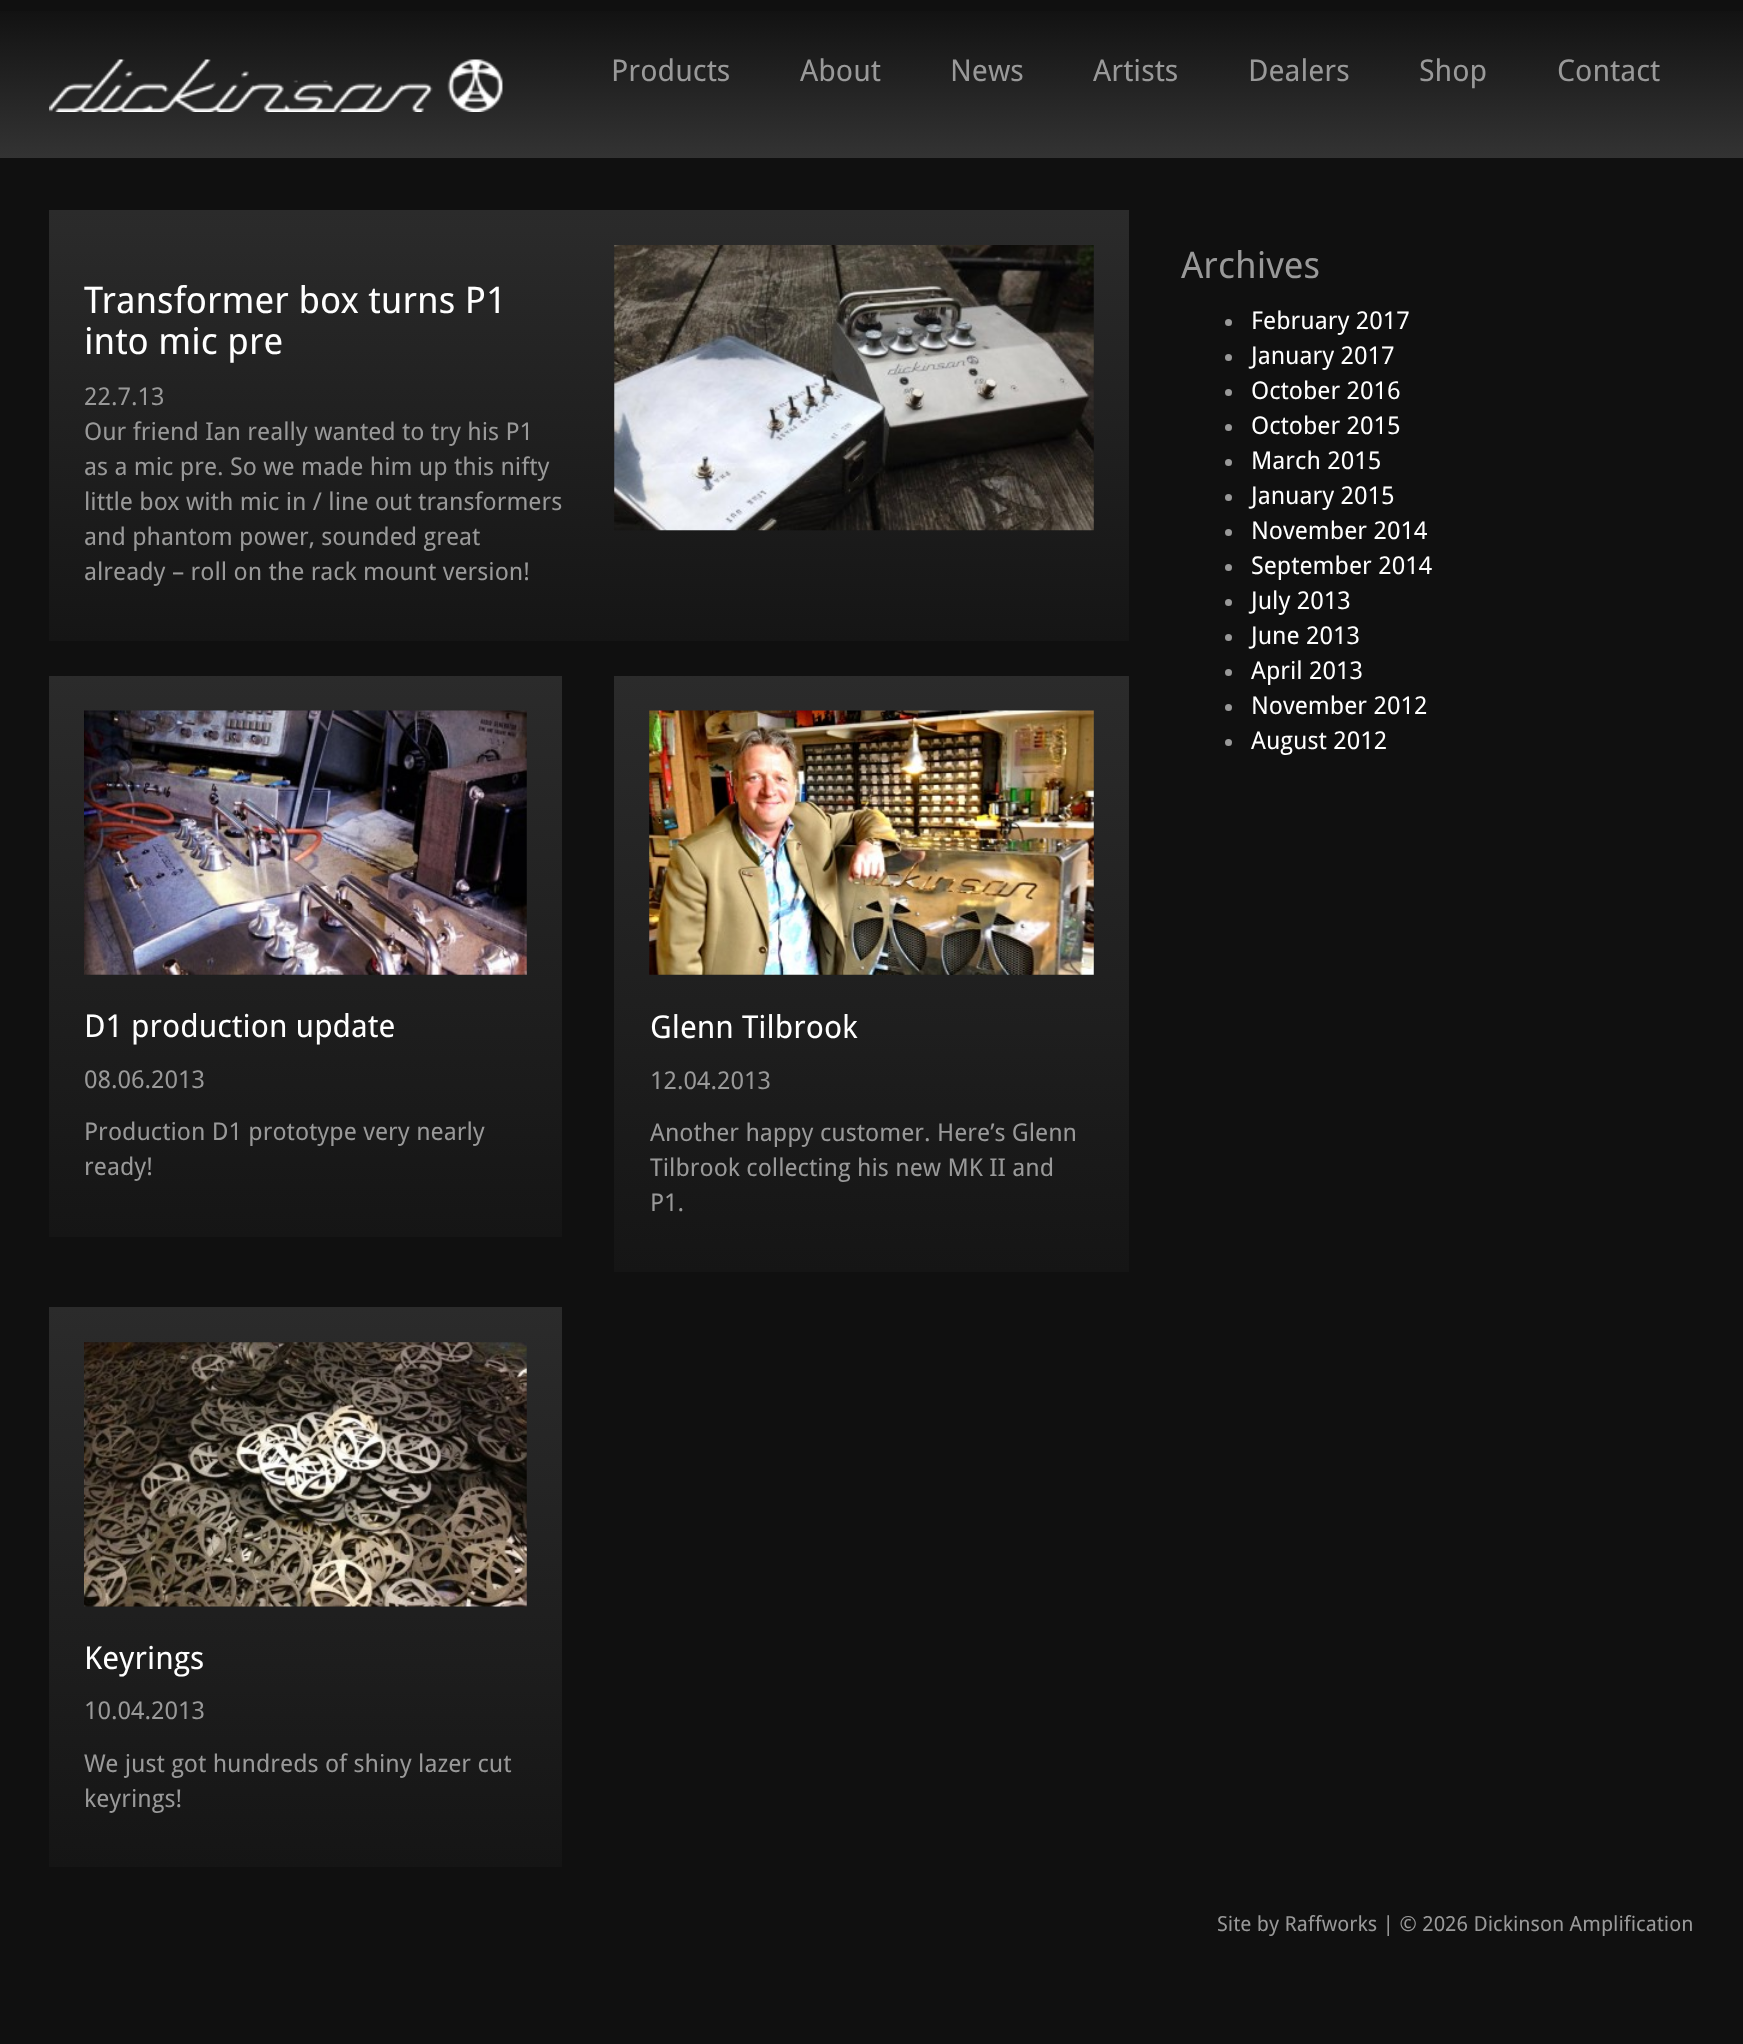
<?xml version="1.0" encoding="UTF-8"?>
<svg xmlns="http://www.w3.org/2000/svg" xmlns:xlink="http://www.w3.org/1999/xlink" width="1743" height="2044">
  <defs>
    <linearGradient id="g1" gradientUnits="userSpaceOnUse" x1="872" y1="0" x2="872" y2="158"><stop offset="0" stop-color="#101010" /><stop offset="1" stop-color="#333333" /></linearGradient>
    <linearGradient id="g2" gradientUnits="userSpaceOnUse" x1="589" y1="210" x2="589" y2="641"><stop offset="0" stop-color="#2b2b2b" /><stop offset="1" stop-color="#151515" /></linearGradient>
    <linearGradient id="g3" gradientUnits="userSpaceOnUse" x1="305" y1="676" x2="305" y2="1237"><stop offset="0" stop-color="#2b2b2b" /><stop offset="1" stop-color="#151515" /></linearGradient>
    <linearGradient id="g4" gradientUnits="userSpaceOnUse" x1="872" y1="676" x2="872" y2="1272"><stop offset="0" stop-color="#2b2b2b" /><stop offset="1" stop-color="#151515" /></linearGradient>
    <linearGradient id="g5" gradientUnits="userSpaceOnUse" x1="305" y1="1307" x2="305" y2="1867"><stop offset="0" stop-color="#2b2b2b" /><stop offset="1" stop-color="#151515" /></linearGradient>
  </defs>
  <rect width="100%" height="100%" fill="#101010" />
  <rect y="11" width="1743" height="147" fill="url(#g1)" />
  <image x="49" y="59" width="454" height="53" xlink:href="image1.png" />
  <rect x="49" y="210" width="1080" height="431" fill="url(#g2)" />
  <image x="614" y="245" width="480" height="286" xlink:href="image2.png" />
  <rect x="49" y="676" width="513" height="561" fill="url(#g3)" />
  <image x="84" y="710" width="443" height="265" xlink:href="image3.png" />
  <rect x="614" y="676" width="515" height="596" fill="url(#g4)" />
  <image x="649" y="710" width="445" height="265" xlink:href="image4.png" />
  <rect x="49" y="1307" width="513" height="560" fill="url(#g5)" />
  <image x="84" y="1342" width="443" height="265" xlink:href="image5.png" />
  <circle cx="1228.5" cy="322.5" r="3.5" fill="#999999" />
  <circle cx="1228.5" cy="357.5" r="3.5" fill="#999999" />
  <circle cx="1228.5" cy="392.5" r="3.5" fill="#999999" />
  <circle cx="1228.5" cy="427.5" r="3.5" fill="#999999" />
  <circle cx="1228.5" cy="462.5" r="3.5" fill="#999999" />
  <circle cx="1228.5" cy="497.5" r="3.5" fill="#999999" />
  <circle cx="1228.5" cy="532.5" r="3.5" fill="#999999" />
  <circle cx="1228.5" cy="567.5" r="3.5" fill="#999999" />
  <circle cx="1228.5" cy="602.5" r="3.5" fill="#999999" />
  <circle cx="1228.5" cy="637.5" r="3.5" fill="#999999" />
  <circle cx="1228.5" cy="672.5" r="3.5" fill="#999999" />
  <circle cx="1228.5" cy="707.5" r="3.5" fill="#999999" />
  <circle cx="1228.5" cy="742.5" r="3.5" fill="#999999" />
  <text x="611" y="81" style="font-family: Droid Sans; font-size: 30px; fill: #999999">Products</text>
  <text x="800" y="81" style="font-family: Droid Sans; font-size: 30px; fill: #999999">About</text>
  <text x="950" y="81" style="font-family: Droid Sans; font-size: 30px; fill: #999999">News</text>
  <text x="1093" y="81" style="font-family: Droid Sans; font-size: 30px; fill: #999999">Artists</text>
  <text x="1248" y="81" style="font-family: Droid Sans; font-size: 30px; fill: #999999">Dealers</text>
  <text x="1419" y="81" style="font-family: Droid Sans; font-size: 30px; fill: #999999">Shop</text>
  <text x="1557" y="81" style="font-family: Droid Sans; font-size: 30px; fill: #999999">Contact</text>
  <text x="84" y="313" style="font-family: Droid Sans; font-size: 36.75px; fill: #ffffff">Transformer box turns P1</text>
  <text x="84" y="354" style="font-family: Droid Sans; font-size: 36.75px; fill: #ffffff">into mic pre</text>
  <text x="84" y="405" style="font-family: Droid Sans; font-size: 24.5px; fill: #999999">22.7.13</text>
  <text x="84" y="440" style="font-family: Droid Sans; font-size: 24.5px; fill: #999999">Our friend Ian really wanted to try his P1</text>
  <text x="84" y="475" style="font-family: Droid Sans; font-size: 24.5px; fill: #999999">as a mic pre. So we made him up this nifty</text>
  <text x="84" y="510" style="font-family: Droid Sans; font-size: 24.5px; fill: #999999">little box with mic in / line out transformers</text>
  <text x="84" y="545" style="font-family: Droid Sans; font-size: 24.5px; fill: #999999">and phantom power, sounded great</text>
  <text x="84" y="580" style="font-family: Droid Sans; font-size: 24.5px; fill: #999999">already – roll on the rack mount version!</text>
  <text x="84" y="1037" style="font-family: Droid Sans; font-size: 31.5px; fill: #ffffff">D1 production update</text>
  <text x="84" y="1088" style="font-family: Droid Sans; font-size: 24.5px; fill: #999999">08.06.2013</text>
  <text x="84" y="1140" style="font-family: Droid Sans; font-size: 24.5px; fill: #999999">Production D1 prototype very nearly</text>
  <text x="84" y="1175" style="font-family: Droid Sans; font-size: 24.5px; fill: #999999">ready!</text>
  <text x="650" y="1038" style="font-family: Droid Sans; font-size: 31.5px; fill: #ffffff">Glenn Tilbrook</text>
  <text x="650" y="1089" style="font-family: Droid Sans; font-size: 24.5px; fill: #999999">12.04.2013</text>
  <text x="650" y="1141" style="font-family: Droid Sans; font-size: 24.5px; fill: #999999">Another happy customer. Here’s Glenn</text>
  <text x="650" y="1176" style="font-family: Droid Sans; font-size: 24.5px; fill: #999999">Tilbrook collecting his new MK II and</text>
  <text x="650" y="1211" style="font-family: Droid Sans; font-size: 24.5px; fill: #999999">P1.</text>
  <text x="84" y="1669" style="font-family: Droid Sans; font-size: 31.5px; fill: #ffffff">Keyrings</text>
  <text x="84" y="1719" style="font-family: Droid Sans; font-size: 24.5px; fill: #999999">10.04.2013</text>
  <text x="84" y="1772" style="font-family: Droid Sans; font-size: 24.5px; fill: #999999">We just got hundreds of shiny lazer cut</text>
  <text x="84" y="1807" style="font-family: Droid Sans; font-size: 24.5px; fill: #999999">keyrings!</text>
  <text x="1181" y="278" style="font-family: Droid Sans; font-size: 36.75px; fill: #999999">Archives</text>
  <text x="1251" y="329" style="font-family: Droid Sans; font-size: 24.5px; fill: #ffffff">February 2017</text>
  <text x="1251" y="364" style="font-family: Droid Sans; font-size: 24.5px; fill: #ffffff">January 2017</text>
  <text x="1251" y="399" style="font-family: Droid Sans; font-size: 24.5px; fill: #ffffff">October 2016</text>
  <text x="1251" y="434" style="font-family: Droid Sans; font-size: 24.5px; fill: #ffffff">October 2015</text>
  <text x="1251" y="469" style="font-family: Droid Sans; font-size: 24.5px; fill: #ffffff">March 2015</text>
  <text x="1251" y="504" style="font-family: Droid Sans; font-size: 24.5px; fill: #ffffff">January 2015</text>
  <text x="1251" y="539" style="font-family: Droid Sans; font-size: 24.5px; fill: #ffffff">November 2014</text>
  <text x="1251" y="574" style="font-family: Droid Sans; font-size: 24.5px; fill: #ffffff">September 2014</text>
  <text x="1251" y="609" style="font-family: Droid Sans; font-size: 24.5px; fill: #ffffff">July 2013</text>
  <text x="1251" y="644" style="font-family: Droid Sans; font-size: 24.5px; fill: #ffffff">June 2013</text>
  <text x="1251" y="679" style="font-family: Droid Sans; font-size: 24.5px; fill: #ffffff">April 2013</text>
  <text x="1251" y="714" style="font-family: Droid Sans; font-size: 24.5px; fill: #ffffff">November 2012</text>
  <text x="1251" y="749" style="font-family: Droid Sans; font-size: 24.5px; fill: #ffffff">August 2012</text>
  <text x="1217" y="1931" style="font-family: Droid Sans; font-size: 20.8px; fill: #999999">Site by Raffworks | © 2026 Dickinson Amplification</text>
</svg>
